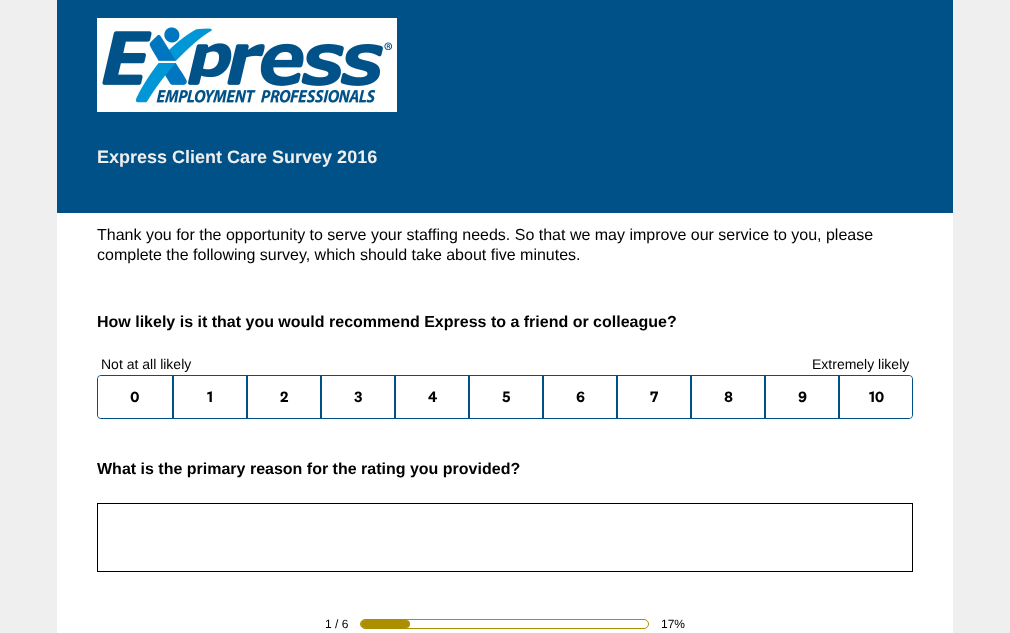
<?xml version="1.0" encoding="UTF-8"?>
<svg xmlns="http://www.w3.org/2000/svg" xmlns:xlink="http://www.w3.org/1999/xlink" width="1010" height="633">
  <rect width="100%" height="100%" fill="#efefef" />
  <rect x="57" width="896" height="213" fill="#005187" />
  <image x="97" y="18" width="300" height="94" xlink:href="image1.png" />
  <rect x="57" y="213" width="896" height="420" fill="#ffffff" />
  <rect x="97.5" y="375.5" width="815" height="43" rx="3.5" fill="none" stroke="#005187" />
  <path d="M 101 376 h 71 v 42 h -71 c -1.5 0 -3 -1.5 -3 -3 v -36 c 0 -1.5 1.5 -3 3 -3 z" fill="#ffffff" />
  <rect x="172" y="376" width="2" height="42" fill="#005187" />
  <rect x="246" y="376" width="2" height="42" fill="#005187" />
  <rect x="320" y="376" width="2" height="42" fill="#005187" />
  <rect x="394" y="376" width="2" height="42" fill="#005187" />
  <rect x="468" y="376" width="2" height="42" fill="#005187" />
  <rect x="542" y="376" width="2" height="42" fill="#005187" />
  <rect x="616" y="376" width="2" height="42" fill="#005187" />
  <rect x="690" y="376" width="2" height="42" fill="#005187" />
  <rect x="764" y="376" width="2" height="42" fill="#005187" />
  <rect x="838" y="376" width="2" height="42" fill="#005187" />
  <path d="M 840 376 h 69 c 1.5 0 3 1.5 3 3 v 36 c 0 1.5 -1.5 3 -3 3 h -69 z" fill="#ffffff" />
  <rect x="97.5" y="503.5" width="815" height="68" fill="none" stroke="#000000" />
  <rect x="360.5" y="619.5" width="288" height="9" rx="4.5" fill="none" stroke="#ac8f00" />
  <rect x="361" y="620" width="49" height="8" rx="4" fill="#ac8f00" />
  <text x="97" y="163" style="font-family: Liberation Sans; font-size: 18px; font-weight: bold; fill: #efefef">Express Client Care Survey 2016</text>
  <text x="97" y="240" style="font-family: Liberation Sans; font-size: 16px; fill: #000000">Thank you for the opportunity to serve your staffing needs. So that we may improve our service to you, please</text>
  <text x="97" y="260" style="font-family: Liberation Sans; font-size: 16px; fill: #000000">complete the following survey, which should take about five minutes.</text>
  <text x="97" y="327" style="font-family: Liberation Sans; font-size: 16px; font-weight: bold; fill: #000000">How likely is it that you would recommend Express to a friend or colleague?</text>
  <text x="101" y="369" style="font-family: Liberation Sans; font-size: 14px; fill: #000000">Not at all likely</text>
  <text x="812" y="369" style="font-family: Liberation Sans; font-size: 14px; fill: #000000">Extremely likely</text>
  <text x="130" y="402" style="font-family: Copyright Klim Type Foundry; font-size: 15px; font-weight: bold; fill: #000000">0</text>
  <text x="207" y="402" style="font-family: Copyright Klim Type Foundry; font-size: 15px; font-weight: bold; fill: #000000">1</text>
  <text x="280" y="402" style="font-family: Copyright Klim Type Foundry; font-size: 15px; font-weight: bold; fill: #000000">2</text>
  <text x="354" y="402" style="font-family: Copyright Klim Type Foundry; font-size: 15px; font-weight: bold; fill: #000000">3</text>
  <text x="428" y="402" style="font-family: Copyright Klim Type Foundry; font-size: 15px; font-weight: bold; fill: #000000">4</text>
  <text x="502" y="402" style="font-family: Copyright Klim Type Foundry; font-size: 15px; font-weight: bold; fill: #000000">5</text>
  <text x="576" y="402" style="font-family: Copyright Klim Type Foundry; font-size: 15px; font-weight: bold; fill: #000000">6</text>
  <text x="650" y="402" style="font-family: Copyright Klim Type Foundry; font-size: 15px; font-weight: bold; fill: #000000">7</text>
  <text x="724" y="402" style="font-family: Copyright Klim Type Foundry; font-size: 15px; font-weight: bold; fill: #000000">8</text>
  <text x="798" y="402" style="font-family: Copyright Klim Type Foundry; font-size: 15px; font-weight: bold; fill: #000000">9</text>
  <text x="869" y="402" style="font-family: Copyright Klim Type Foundry; font-size: 15px; font-weight: bold; fill: #000000">10</text>
  <text x="97" y="474" style="font-family: Liberation Sans; font-size: 16px; font-weight: bold; fill: #000000">What is the primary reason for the rating you provided?</text>
  <text x="325" y="628" style="font-family: Liberation Sans; font-size: 12px; fill: #000000">1 / 6</text>
  <text x="661" y="628" style="font-family: Liberation Sans; font-size: 12px; fill: #000000">17%</text>
</svg>
